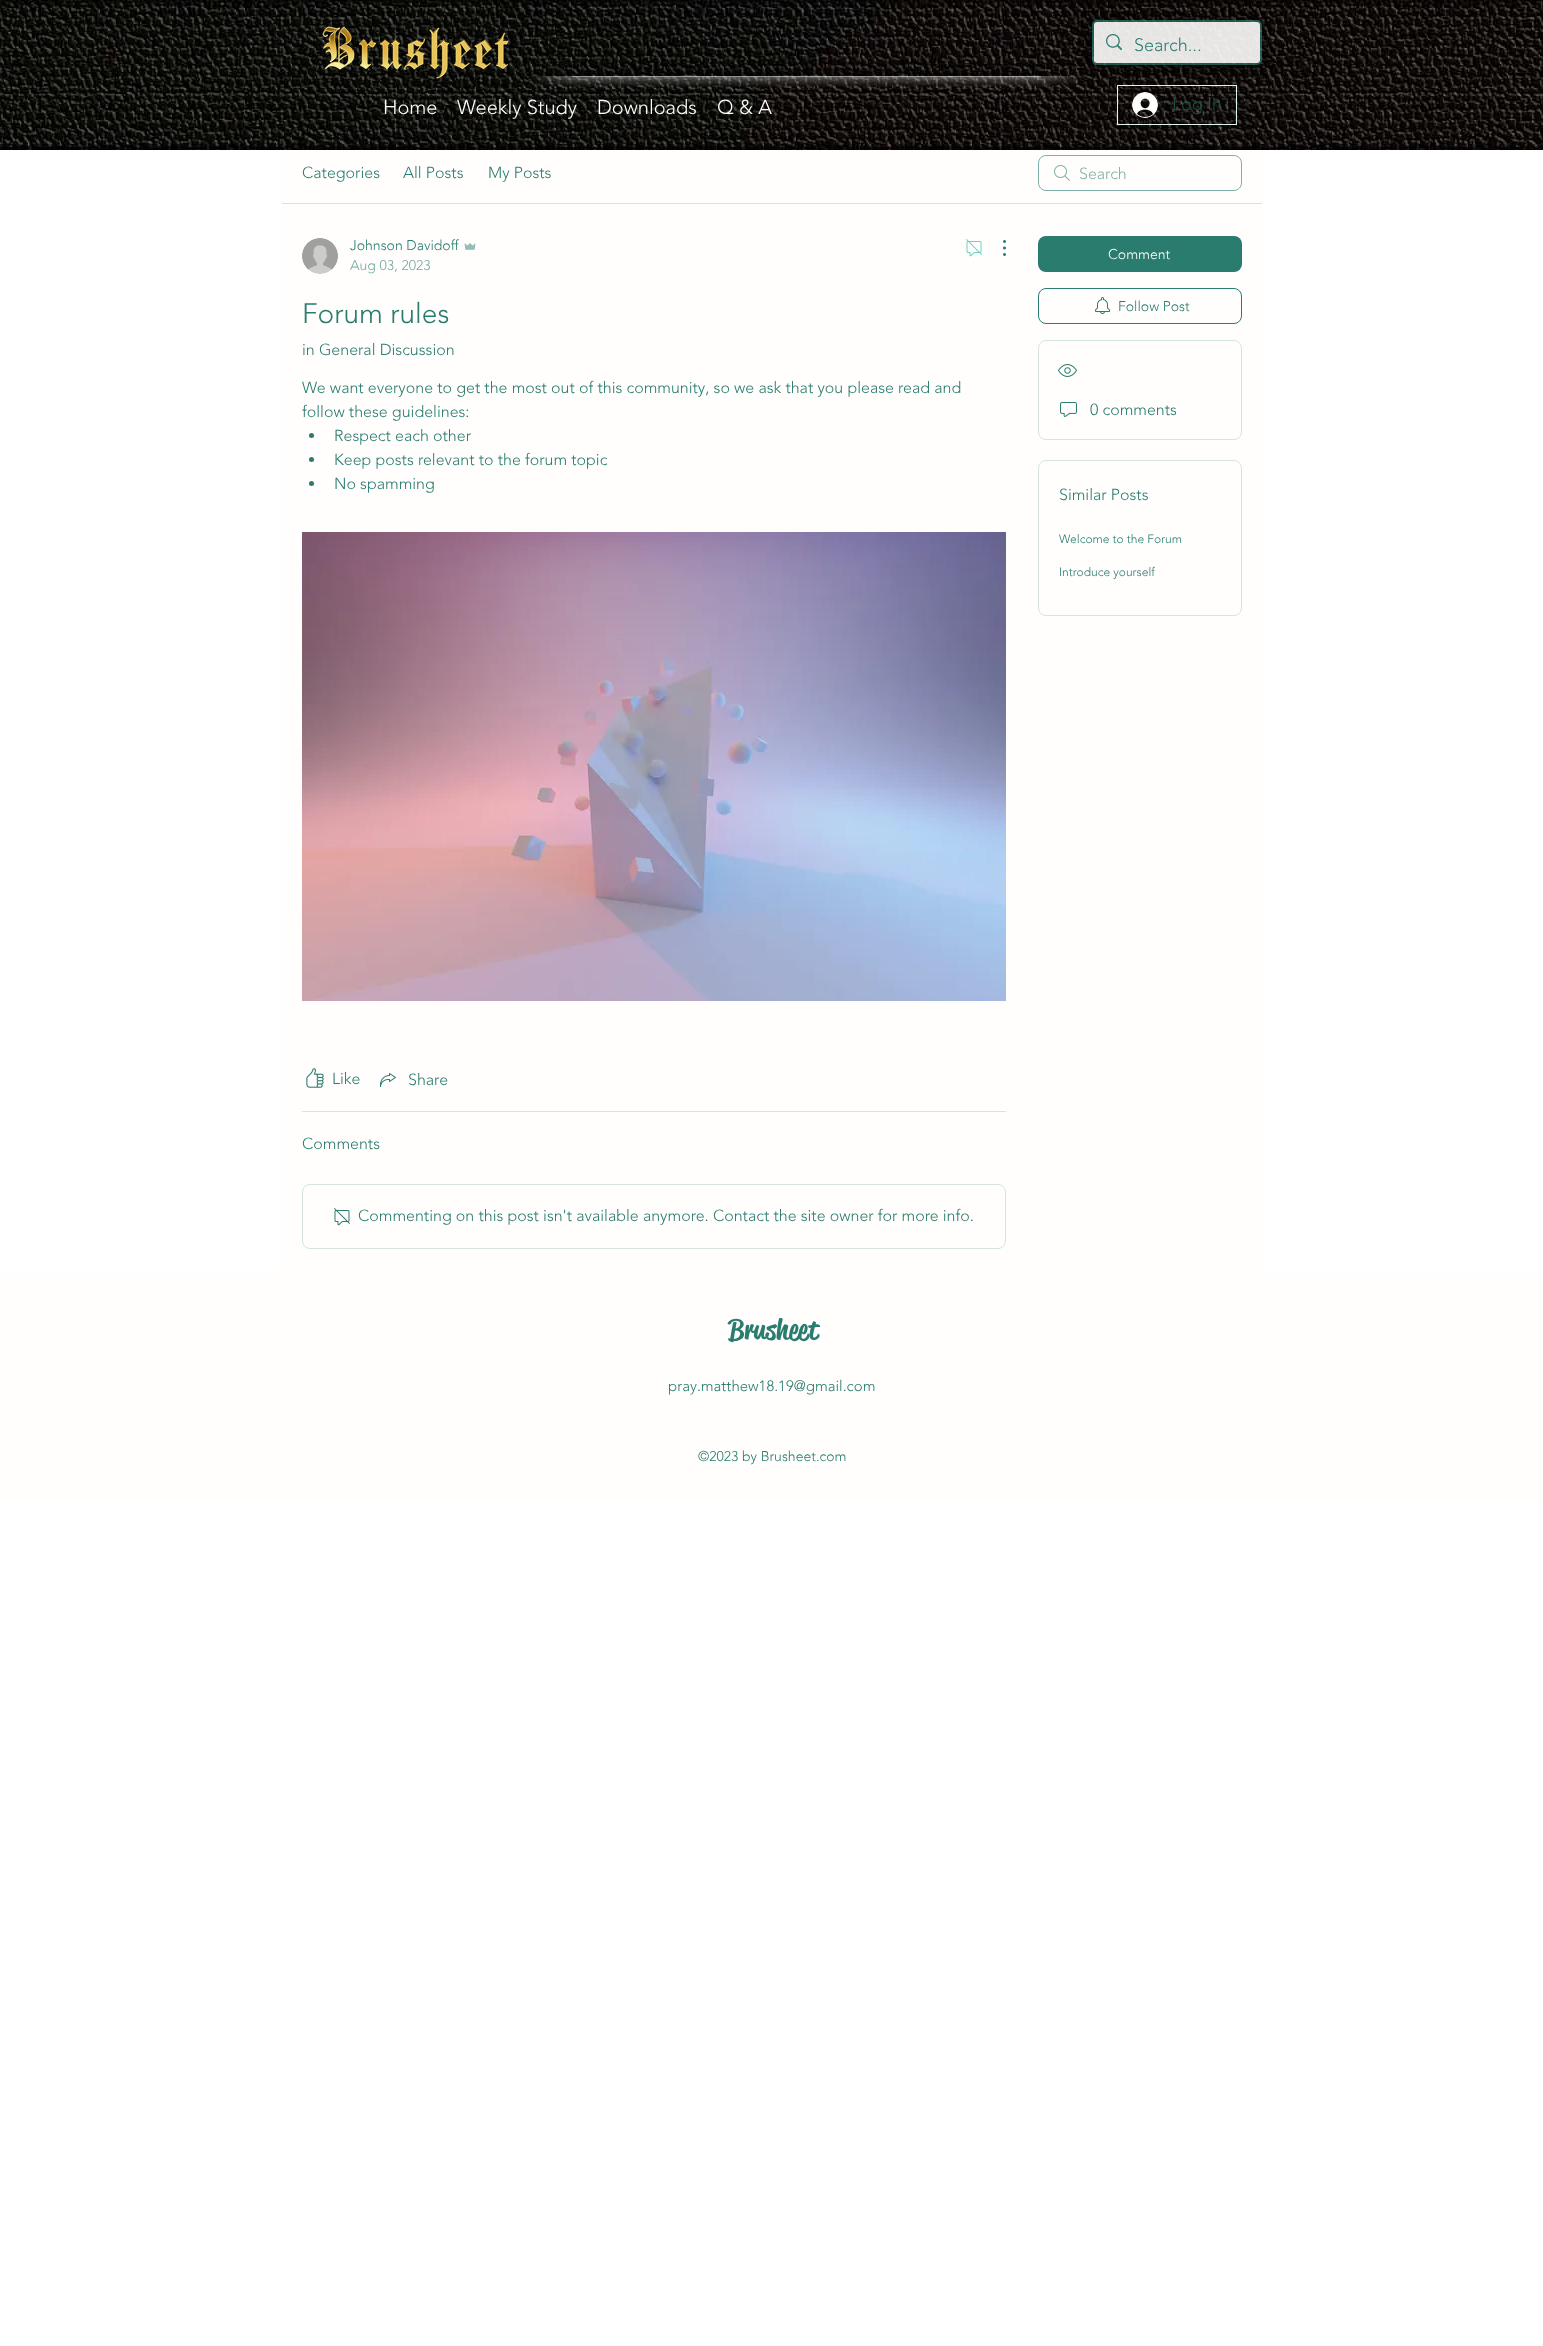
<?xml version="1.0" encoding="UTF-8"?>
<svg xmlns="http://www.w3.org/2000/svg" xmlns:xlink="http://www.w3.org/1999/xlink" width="1543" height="2346">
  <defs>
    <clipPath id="clip1"><path d="M 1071 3 h 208 v 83 h -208 z m 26 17 h 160 c 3 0 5 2 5 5 v 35 c 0 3 -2 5 -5 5 h -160 c -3 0 -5 -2 -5 -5 v -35 c 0 -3 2 -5 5 -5 z" clip-rule="evenodd" /></clipPath>
  </defs>
  <rect width="100%" height="100%" fill="#ffffff" />
  <image x="0" y="0" width="1543" height="150" xlink:href="image1.png" />
  <image x="322" y="26" width="187" height="53" xlink:href="image2.png" />
  <image x="1041" y="67" width="42" height="20" xlink:href="image6.png" />
  <g clip-path="url(#clip1)">
    <rect x="1087" y="19" width="176" height="51" rx="8" fill="#000000" fill-opacity="0.6" filter="blur(5px)" />
  </g>
  <rect x="1093" y="21" width="168" height="43" rx="4" fill="none" stroke="#2a7c6f" stroke-opacity="0.7" stroke-width="2" />
  <rect x="1094" y="22" width="166" height="41" rx="3" fill="#fffefc" fill-opacity="0.9" />
  <image x="1106" y="34" width="16" height="17" xlink:href="image3.png" />
  <image x="572" y="65" width="469" height="22" xlink:href="image4.png" />
  <image x="530" y="67" width="42" height="20" xlink:href="image5.png" />
  <rect x="1117.5" y="85.5" width="119" height="39" fill="none" stroke="#dff5ef" />
  <image x="1132" y="92" width="26" height="26" xlink:href="image7.png" />
  <rect x="282" y="150" width="980" height="1123" fill="#fffefc" />
  <rect x="282" y="203" width="980" height="1" fill="#d4e4e0" />
  <image x="1054" y="165" width="16" height="16" xlink:href="image8.png" />
  <rect x="1038.5" y="155.5" width="203" height="35" rx="7.5" fill="none" stroke="#7fb0a7" />
  <image x="302" y="238" width="36" height="36" xlink:href="image9.png" />
  <image x="464" y="243" width="12" height="7" xlink:href="image10.png" />
  <image x="966" y="239" width="16" height="18" xlink:href="image11.png" />
  <image x="1003" y="240" width="3" height="16" xlink:href="image12.png" />
  <circle cx="311.5" cy="435.5" r="2.5" fill="#2a7c6f" />
  <circle cx="311.5" cy="459.5" r="2.5" fill="#2a7c6f" />
  <circle cx="311.5" cy="483.5" r="2.5" fill="#2a7c6f" />
  <image x="302" y="532" width="704" height="469" xlink:href="image13.png" />
  <image x="306" y="1068" width="18" height="20" xlink:href="image14.png" />
  <image x="380" y="1073" width="16" height="14" xlink:href="image15.png" />
  <rect x="302" y="1111" width="704" height="1" fill="#d4e4e0" />
  <rect x="302.5" y="1184.5" width="703" height="64" rx="7.5" fill="none" stroke="#d4e4e0" />
  <image x="334" y="1208" width="16" height="18" xlink:href="image16.png" />
  <rect x="1038" y="236" width="204" height="36" rx="8" fill="#2a7c6f" />
  <rect x="1038.5" y="288.5" width="203" height="35" rx="7.5" fill="none" stroke="#2a7c6f" />
  <image x="1095" y="297" width="15" height="17" xlink:href="image17.png" />
  <rect x="1038.5" y="340.5" width="203" height="99" rx="7.5" fill="none" stroke="#d4e4e0" />
  <image x="1058" y="364" width="19" height="13" xlink:href="image18.png" />
  <image x="1060" y="402" width="17" height="15" xlink:href="image19.png" />
  <rect x="1038.5" y="460.5" width="203" height="155" rx="7.5" fill="none" stroke="#d4e4e0" />
  <rect y="1273" width="1543" height="226" fill="#fffefc" />
  <text x="1134" y="51" style="font-family: 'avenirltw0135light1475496'; font-size: 18px; font-weight: 300; fill: #2a7c6f">Search...</text>
  <text x="383" y="114" style="font-family: 'avenirltw0135light1475496'; font-size: 20px; font-weight: 300; fill: #fffefc">Home</text>
  <text x="457" y="114" style="font-family: 'avenirltw0135light1475496'; font-size: 20px; font-weight: 300; fill: #fffefc">Weekly Study</text>
  <text x="597" y="114" style="font-family: 'avenirltw0135light1475496'; font-size: 20px; font-weight: 300; fill: #fffefc">Downloads</text>
  <text x="717" y="114" style="font-family: 'avenirltw0135light1475496'; font-size: 20px; font-weight: 300; fill: #fffefc">Q &amp; A</text>
  <text x="1172" y="110" style="font-family: 'avenirltw0135light1475496'; font-size: 18px; font-weight: 300; fill: #1c534a">Log In</text>
  <text x="302" y="178" style="font-family: 'avenirltw0135light1475496'; font-size: 16px; font-weight: 300; fill: #2a7c6f">Categories</text>
  <text x="403" y="178" style="font-family: 'avenirltw0135light1475496'; font-size: 16px; font-weight: 300; fill: #2a7c6f">All Posts</text>
  <text x="488" y="178" style="font-family: 'avenirltw0135light1475496'; font-size: 16px; font-weight: 300; fill: #2a7c6f">My Posts</text>
  <text x="1079" y="179" style="font-family: 'avenirltw0135light1475496'; font-size: 16px; font-weight: 300; fill: #7fb0a7">Search</text>
  <text x="350" y="250" style="font-family: 'avenirltw0135light1475496'; font-size: 14px; font-weight: 300; fill: #2a7c6f">Johnson Davidoff</text>
  <text x="350" y="270" style="font-family: 'avenirltw0135light1475496'; font-size: 14px; font-weight: 300; fill: #77aba2">Aug 03, 2023</text>
  <text x="302" y="323" style="font-family: 'avenirltw0135light1475496'; font-size: 28px; font-weight: 300; fill: #2a7c6f">Forum rules</text>
  <text x="302" y="355" style="font-family: 'avenirltw0135light1475496'; font-size: 16px; font-weight: 300; fill: #2a7c6f">in General Discussion</text>
  <text x="302" y="393" style="font-family: 'avenirltw0135light1475496'; font-size: 16px; font-weight: 300; fill: #2a7c6f">We want everyone to get the most out of this community, so we ask that you please read and</text>
  <text x="302" y="417" style="font-family: 'avenirltw0135light1475496'; font-size: 16px; font-weight: 300; fill: #2a7c6f">follow these guidelines:</text>
  <text x="334" y="441" style="font-family: 'avenirltw0135light1475496'; font-size: 16px; font-weight: 300; fill: #2a7c6f">Respect each other</text>
  <text x="334" y="465" style="font-family: 'avenirltw0135light1475496'; font-size: 16px; font-weight: 300; fill: #2a7c6f">Keep posts relevant to the forum topic</text>
  <text x="334" y="489" style="font-family: 'avenirltw0135light1475496'; font-size: 16px; font-weight: 300; fill: #2a7c6f">No spamming</text>
  <text x="332" y="1084" style="font-family: 'avenirltw0135light1475496'; font-size: 16px; font-weight: 300; fill: #2a7c6f">Like</text>
  <text x="408" y="1085" style="font-family: 'avenirltw0135light1475496'; font-size: 16px; font-weight: 300; fill: #2a7c6f">Share</text>
  <text x="302" y="1149" style="font-family: 'avenirltw0135light1475496'; font-size: 16px; font-weight: 300; fill: #2a7c6f">Comments</text>
  <text x="358" y="1221" style="font-family: 'avenirltw0135light1475496'; font-size: 16px; font-weight: 300; fill: #2a7c6f">Commenting on this post isn't available anymore. Contact the site owner for more info.</text>
  <text x="1108" y="259" style="font-family: 'avenirltw0135light1475496'; font-size: 14px; font-weight: 300; fill: #fffefc">Comment</text>
  <text x="1118" y="311" style="font-family: 'avenirltw0135light1475496'; font-size: 14px; font-weight: 300; fill: #2a7c6f">Follow Post</text>
  <text x="1090" y="415" style="font-family: 'avenirltw0135light1475496'; font-size: 16px; font-weight: 300; fill: #2a7c6f">0 comments</text>
  <text x="1059" y="500" style="font-family: 'avenirltw0135light1475496'; font-size: 16px; font-weight: 300; fill: #2a7c6f">Similar Posts</text>
  <text x="1059" y="543" style="font-family: 'avenirltw0135light1475496'; font-size: 12px; font-weight: 300; fill: #2a7c6f">Welcome to the Forum</text>
  <text x="1059" y="576" style="font-family: 'avenirltw0135light1475496'; font-size: 12px; font-weight: 300; fill: #2a7c6f">Introduce yourself</text>
  <text x="728" y="1339" style="font-family: 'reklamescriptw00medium'; font-size: 28px; font-weight: 500; fill: #2a7c6f">Brusheet</text>
  <text x="668" y="1391" style="font-family: 'avenirltw0135light1475496'; font-size: 15px; font-weight: 300; fill: #2a7c6f">pray.matthew18.19@gmail.com</text>
  <text x="698" y="1461" style="font-family: 'avenirltw0135light1475496'; font-size: 14px; font-weight: 300; fill: #2a7c6f">©2023 by Brusheet.com</text>
</svg>
